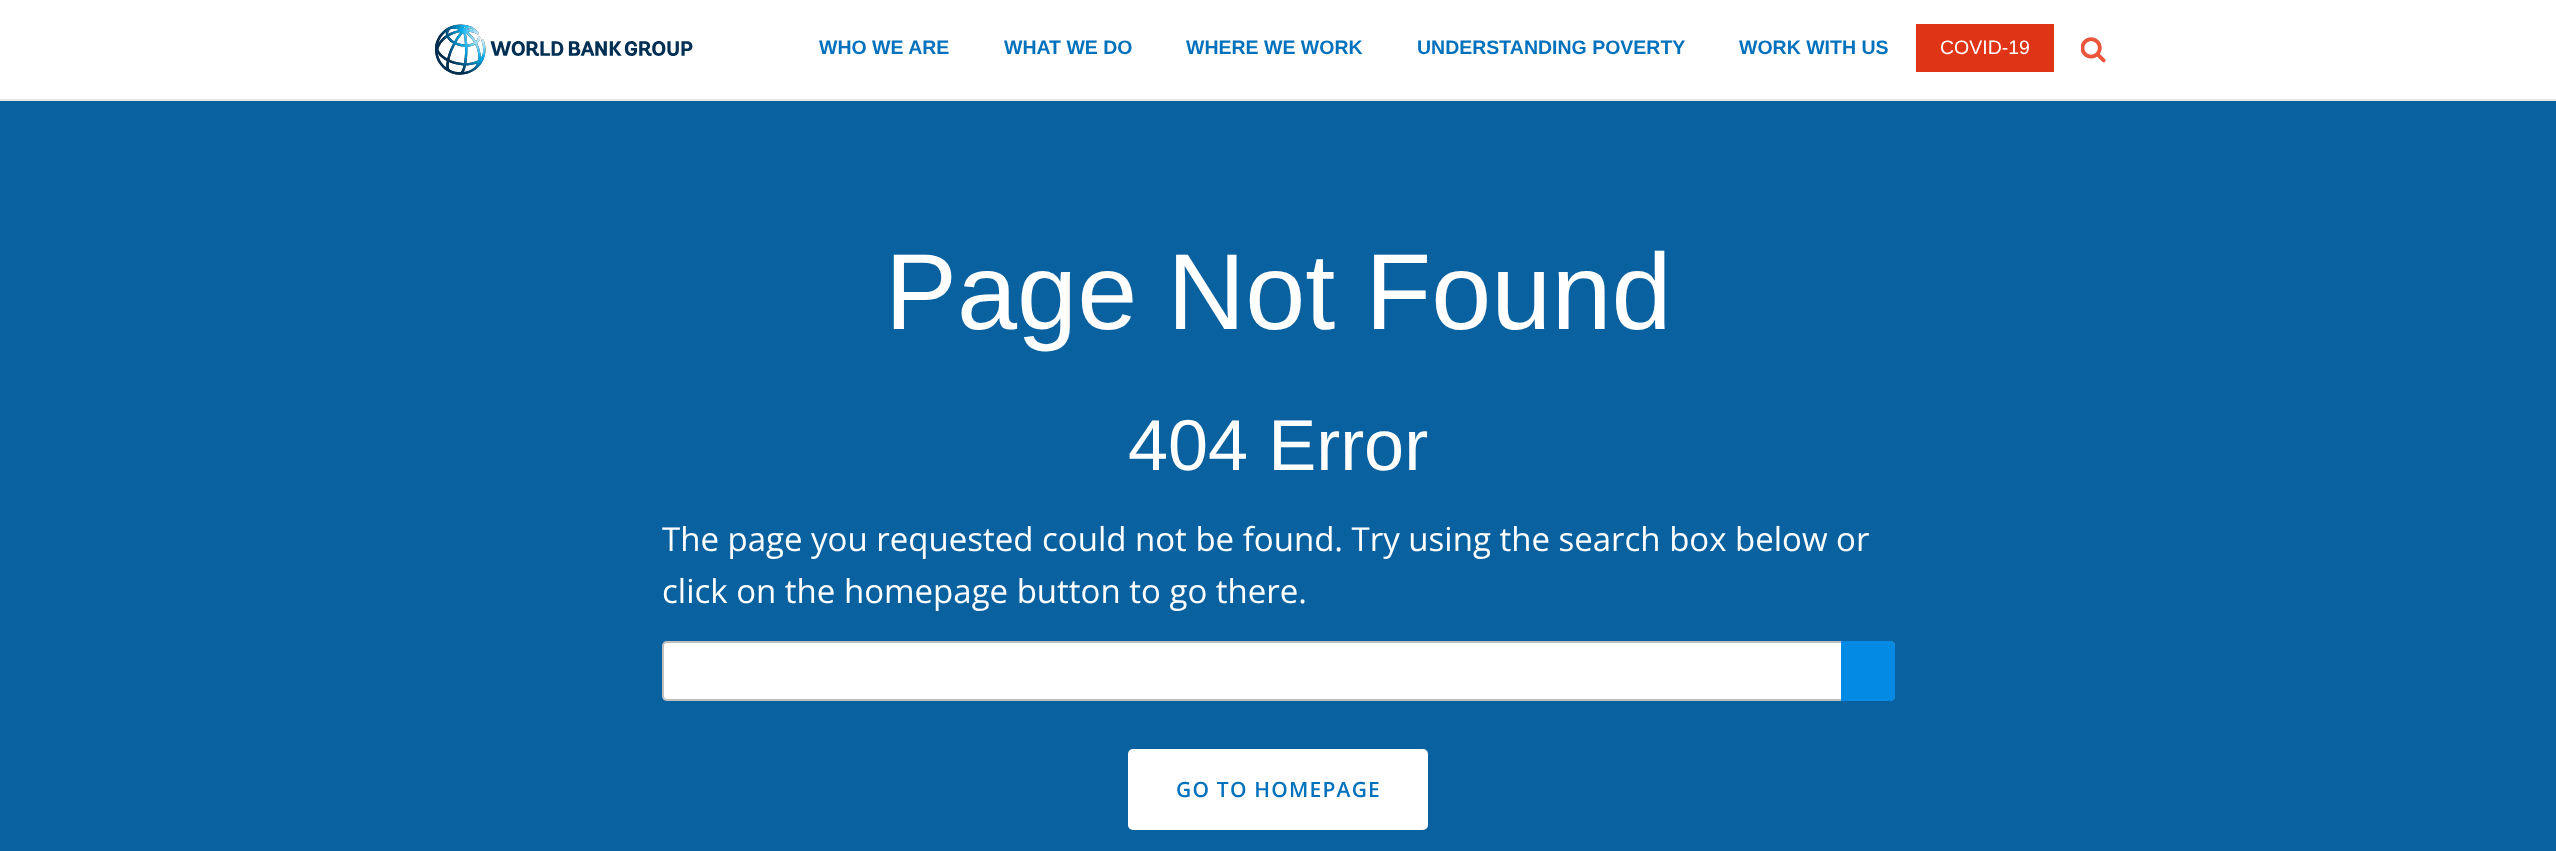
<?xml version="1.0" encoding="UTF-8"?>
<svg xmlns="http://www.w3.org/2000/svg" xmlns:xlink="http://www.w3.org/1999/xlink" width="2556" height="851">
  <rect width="100%" height="100%" fill="#ffffff" />
  <rect y="99" width="2556" height="2" fill="#e5e5e5" />
  <image x="435" y="24" width="258" height="51" xlink:href="image1.png" />
  <rect x="1916" y="24" width="138" height="48" fill="#df3416" />
  <image x="2081" y="37" width="25" height="26" xlink:href="image2.png" />
  <rect y="101" width="2556" height="750" fill="#0961a0" />
  <rect x="662" y="641" width="1233" height="60" rx="5" fill="#ffffff" />
  <rect x="663" y="642" width="1231" height="58" rx="4" fill="none" stroke="#000000" stroke-opacity="0.25" stroke-width="2" />
  <path d="M 1841 641 h 49 c 3 0 5 2 5 5 v 50 c 0 3 -2 5 -5 5 h -49 z" fill="#028ae4" />
  <rect x="1128" y="749" width="300" height="81" rx="5" fill="#ffffff" />
  <text x="819" y="54" style="font-family: Liberation Sans; font-size: 19.5px; font-weight: bold; fill: #0071bc">WHO WE ARE</text>
  <text x="1004" y="54" style="font-family: Liberation Sans; font-size: 19.5px; font-weight: bold; fill: #0071bc">WHAT WE DO</text>
  <text x="1186" y="54" style="font-family: Liberation Sans; font-size: 19.5px; font-weight: bold; fill: #0071bc">WHERE WE WORK</text>
  <text x="1417" y="54" style="font-family: Liberation Sans; font-size: 19.5px; font-weight: bold; fill: #0071bc">UNDERSTANDING POVERTY</text>
  <text x="1739" y="54" style="font-family: Liberation Sans; font-size: 19.5px; font-weight: bold; fill: #0071bc">WORK WITH US</text>
  <text x="1940" y="54" style="font-family: Liberation Sans; font-size: 19.5px; fill: #ffffff">COVID-19</text>
  <text x="885" y="329" style="font-family: Liberation Sans; font-size: 108px; fill: #ffffff">Page Not Found</text>
  <text x="1128" y="470" style="font-family: Liberation Sans; font-size: 72px; fill: #ffffff">404 Error</text>
  <text x="662" y="551" style="font-family: Open Sans; font-size: 33px; fill: #ffffff">The page you requested could not be found. Try using the search box below or</text>
  <text x="662" y="603" style="font-family: Open Sans; font-size: 33px; fill: #ffffff">click on the homepage button to go there.</text>
  <text x="1176" y="797" style="font-family: Open Sans; font-size: 21px; font-weight: 600; letter-spacing: 1.2px; fill: #0071bc">GO TO HOMEPAGE</text>
</svg>
